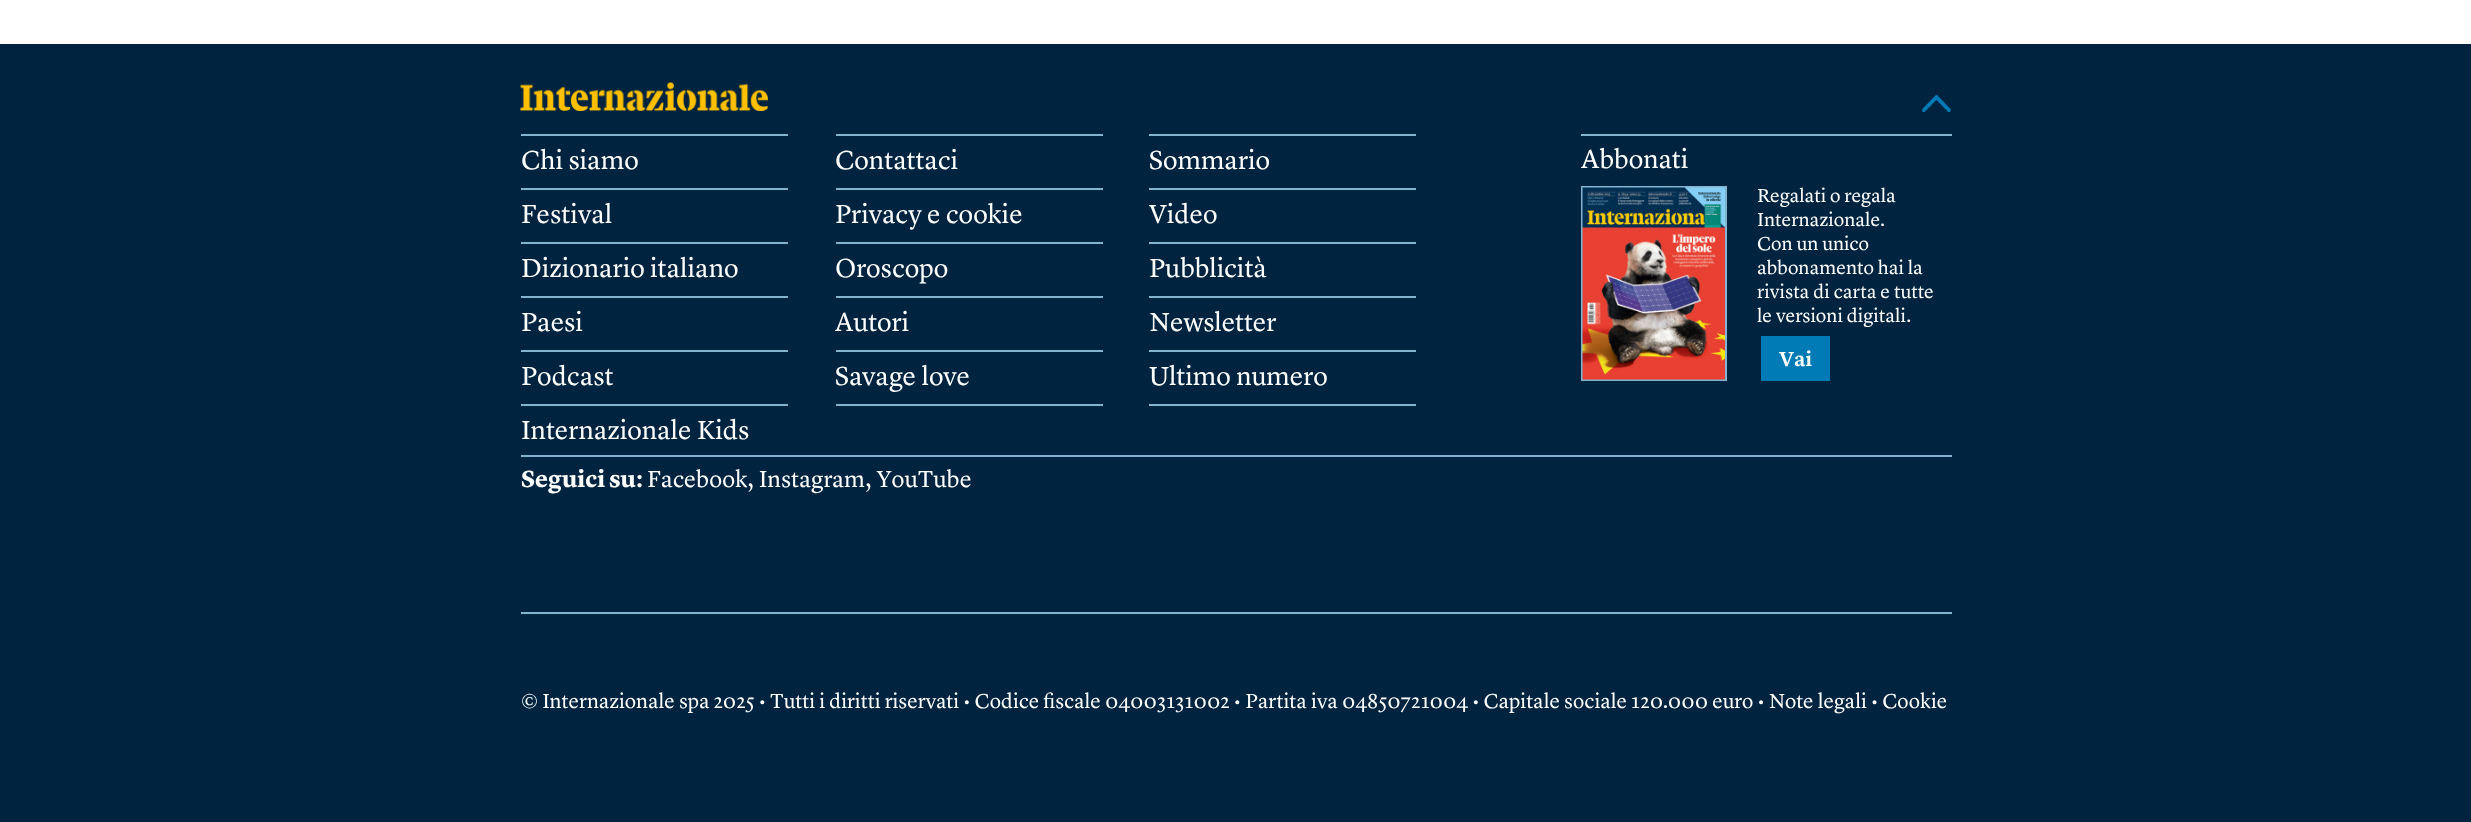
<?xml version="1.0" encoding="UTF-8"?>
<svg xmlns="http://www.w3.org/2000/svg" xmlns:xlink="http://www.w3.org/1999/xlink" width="2471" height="822">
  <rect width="100%" height="100%" fill="#ffffff" />
  <rect y="44" width="2471" height="778" fill="#002440" />
  <image x="520" y="82" width="248" height="29" xlink:href="image1.png" />
  <image x="1922" y="95" width="29" height="17" xlink:href="image2.png" />
  <rect x="521" y="134" width="267" height="2" fill="#80b4d1" />
  <rect x="521" y="188" width="267" height="2" fill="#80b4d1" />
  <rect x="836" y="134" width="267" height="2" fill="#80b4d1" />
  <rect x="836" y="188" width="267" height="2" fill="#80b4d1" />
  <rect x="1149" y="134" width="267" height="2" fill="#80b4d1" />
  <rect x="1149" y="188" width="267" height="2" fill="#80b4d1" />
  <rect x="521" y="242" width="267" height="2" fill="#80b4d1" />
  <rect x="836" y="242" width="267" height="2" fill="#80b4d1" />
  <rect x="1149" y="242" width="267" height="2" fill="#80b4d1" />
  <rect x="521" y="296" width="267" height="2" fill="#80b4d1" />
  <rect x="836" y="296" width="267" height="2" fill="#80b4d1" />
  <rect x="1149" y="296" width="267" height="2" fill="#80b4d1" />
  <rect x="521" y="350" width="267" height="2" fill="#80b4d1" />
  <rect x="836" y="350" width="267" height="2" fill="#80b4d1" />
  <rect x="1149" y="350" width="267" height="2" fill="#80b4d1" />
  <rect x="521" y="404" width="267" height="2" fill="#80b4d1" />
  <rect x="836" y="404" width="267" height="2" fill="#80b4d1" />
  <rect x="1149" y="404" width="267" height="2" fill="#80b4d1" />
  <rect x="1581" y="134" width="371" height="2" fill="#80b4d1" />
  <rect x="1582" y="187" width="144" height="193" fill="none" stroke="#80b4d1" stroke-width="2" />
  <image x="1582" y="187" width="143" height="193" xlink:href="image3.png" />
  <rect x="1761" y="336" width="69" height="45" fill="#007bb5" />
  <rect x="521" y="455" width="1431" height="2" fill="#80b4d1" />
  <rect x="521" y="612" width="1431" height="2" fill="#80b4d1" />
  <text x="521" y="169" style="font-family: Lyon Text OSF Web; font-size: 27px; fill: #ffffff">Chi siamo</text>
  <text x="835" y="169" style="font-family: Lyon Text OSF Web; font-size: 27px; fill: #ffffff">Contattaci</text>
  <text x="1149" y="169" style="font-family: Lyon Text OSF Web; font-size: 27px; fill: #ffffff">Sommario</text>
  <text x="521" y="223" style="font-family: Lyon Text OSF Web; font-size: 27px; fill: #ffffff">Festival</text>
  <text x="835" y="223" style="font-family: Lyon Text OSF Web; font-size: 27px; fill: #ffffff">Privacy e cookie</text>
  <text x="1149" y="223" style="font-family: Lyon Text OSF Web; font-size: 27px; fill: #ffffff">Video</text>
  <text x="521" y="277" style="font-family: Lyon Text OSF Web; font-size: 27px; fill: #ffffff">Dizionario italiano</text>
  <text x="835" y="277" style="font-family: Lyon Text OSF Web; font-size: 27px; fill: #ffffff">Oroscopo</text>
  <text x="1149" y="277" style="font-family: Lyon Text OSF Web; font-size: 27px; fill: #ffffff">Pubblicità</text>
  <text x="521" y="331" style="font-family: Lyon Text OSF Web; font-size: 27px; fill: #ffffff">Paesi</text>
  <text x="835" y="331" style="font-family: Lyon Text OSF Web; font-size: 27px; fill: #ffffff">Autori</text>
  <text x="1149" y="331" style="font-family: Lyon Text OSF Web; font-size: 27px; fill: #ffffff">Newsletter</text>
  <text x="521" y="385" style="font-family: Lyon Text OSF Web; font-size: 27px; fill: #ffffff">Podcast</text>
  <text x="835" y="385" style="font-family: Lyon Text OSF Web; font-size: 27px; fill: #ffffff">Savage love</text>
  <text x="1149" y="385" style="font-family: Lyon Text OSF Web; font-size: 27px; fill: #ffffff">Ultimo numero</text>
  <text x="521" y="439" style="font-family: Lyon Text OSF Web; font-size: 27px; fill: #ffffff">Internazionale Kids</text>
  <text x="1581" y="168" style="font-family: Lyon Text OSF Web; font-size: 27px; fill: #ffffff">Abbonati</text>
  <text x="1757" y="202" style="font-family: Lyon Text OSF Web; font-size: 19.5px; fill: #ffffff">Regalati o regala</text>
  <text x="1757" y="226" style="font-family: Lyon Text OSF Web; font-size: 19.5px; fill: #ffffff">Internazionale.</text>
  <text x="1757" y="250" style="font-family: Lyon Text OSF Web; font-size: 19.5px; fill: #ffffff">Con un unico</text>
  <text x="1757" y="274" style="font-family: Lyon Text OSF Web; font-size: 19.5px; fill: #ffffff">abbonamento hai la</text>
  <text x="1757" y="298" style="font-family: Lyon Text OSF Web; font-size: 19.5px; fill: #ffffff">rivista di carta e tutte</text>
  <text x="1757" y="322" style="font-family: Lyon Text OSF Web; font-size: 19.5px; fill: #ffffff">le versioni digitali.</text>
  <text x="1779" y="366" style="font-family: Lyon Text OSF Web; font-size: 21px; font-weight: 600; fill: #ffffff">Vai</text>
  <text x="521" y="487" style="font-family: Lyon Text OSF Web; font-size: 24px; font-weight: bold; fill: #ffffff">Seguici su:</text>
  <text x="647" y="487" style="font-family: Lyon Text OSF Web; font-size: 24px; fill: #ffffff">Facebook, Instagram, YouTube</text>
  <text x="521" y="708" style="font-family: Lyon Text OSF Web; font-size: 21px; fill: #ffffff">© Internazionale spa 2025 • Tutti i diritti riservati • Codice fiscale 04003131002 • Partita iva 04850721004 • Capitale sociale 120.000 euro • Note legali • Cookie</text>
</svg>
